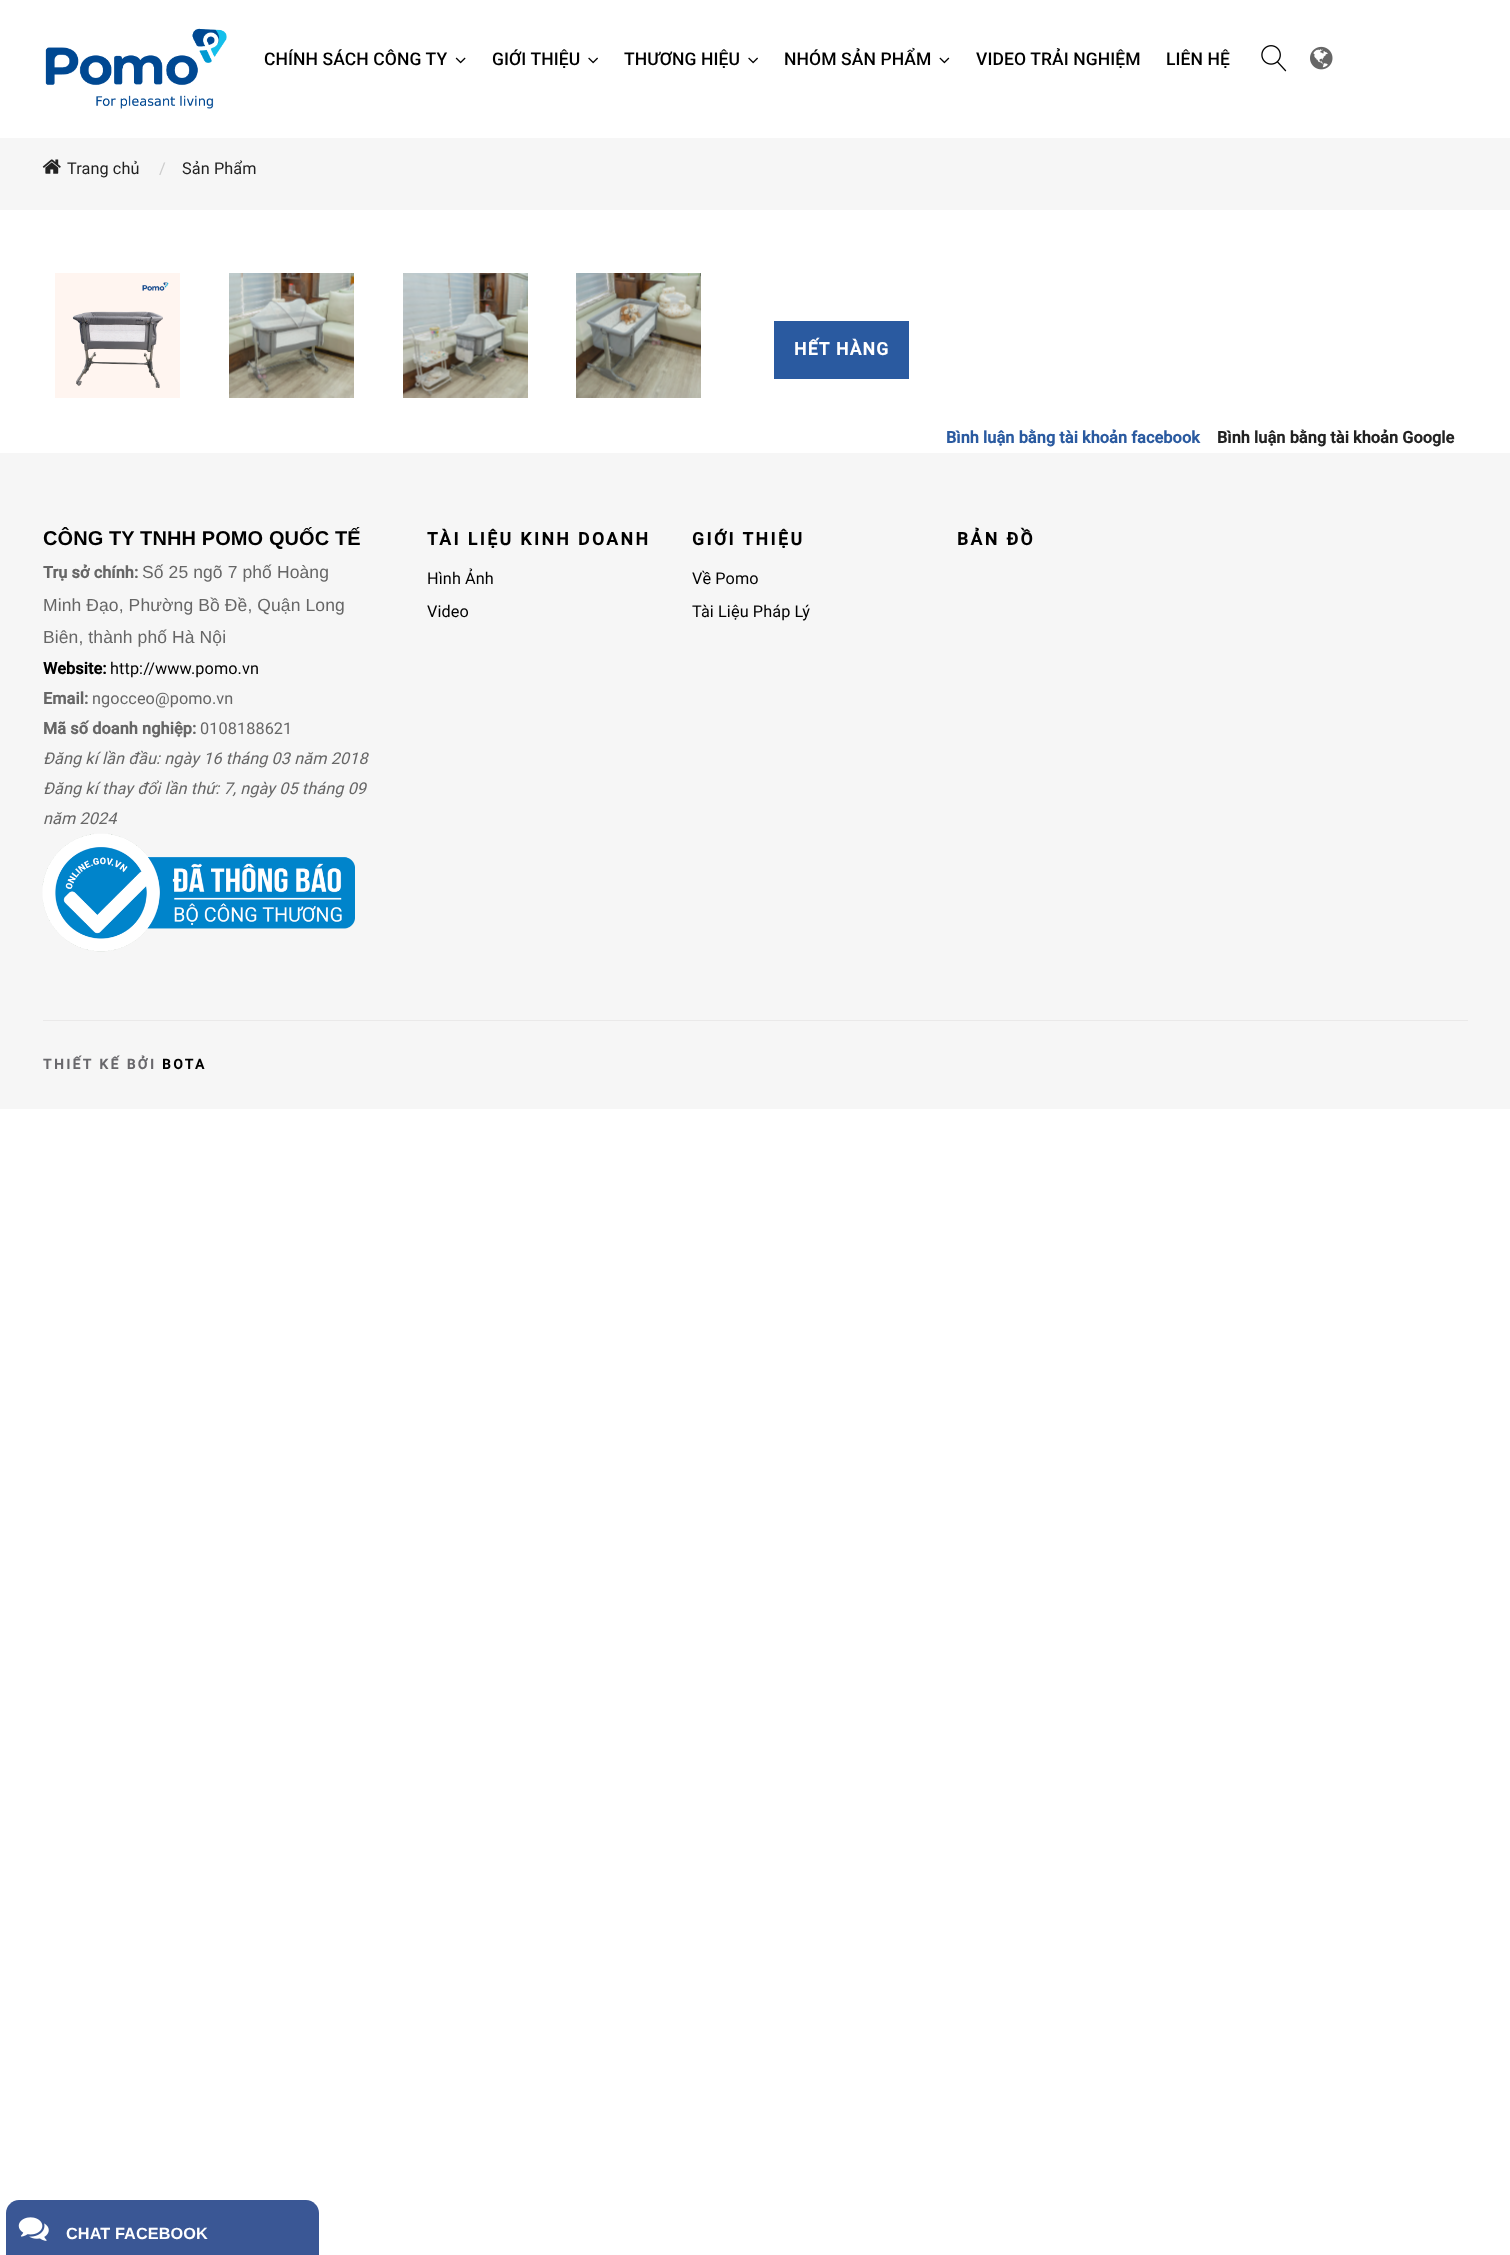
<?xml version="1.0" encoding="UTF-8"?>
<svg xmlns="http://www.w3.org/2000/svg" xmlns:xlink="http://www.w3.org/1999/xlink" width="1510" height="2255">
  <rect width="100%" height="100%" fill="#ffffff" />
  <image x="45" y="28" width="182" height="81" xlink:href="image1.png" />
  <image x="455" y="57" width="11" height="7" xlink:href="image2.png" />
  <image x="588" y="57" width="10" height="7" xlink:href="image3.png" />
  <image x="748" y="57" width="10" height="7" xlink:href="image3.png" />
  <image x="939" y="57" width="11" height="7" xlink:href="image4.png" />
  <image x="1261" y="45" width="26" height="27" xlink:href="image5.png" />
  <image x="1310" y="46" width="23" height="24" xlink:href="image6.png" />
  <rect y="138" width="1510" height="72" fill="#f6f6f6" />
  <image x="42" y="159" width="19" height="15" xlink:href="image7.png" />
  <image x="55" y="273" width="125" height="125" xlink:href="image8.png" />
  <image x="229" y="273" width="125" height="125" xlink:href="image9.png" />
  <image x="403" y="273" width="125" height="125" xlink:href="image10.png" />
  <image x="576" y="273" width="125" height="125" xlink:href="image11.png" />
  <rect x="774" y="321" width="135" height="58" fill="#2a5aa0" />
  <rect y="453" width="1510" height="656" fill="#f6f6f6" />
  <image x="42" y="833" width="313" height="119" xlink:href="image12.png" />
  <rect x="43" y="1020" width="1425" height="1" fill="#eae9e9" />
  <path d="M 19 2200 h 287 c 7 0 13 6 13 13 v 42 h -313 v -42 c 0 -7 6 -13 13 -13 z" fill="#3a5795" />
  <image x="18" y="2217" width="31" height="24" xlink:href="image13.png" />
  <text x="264" y="65" style="font-family: Roboto; font-size: 17.5px; font-weight: 500; letter-spacing: 0.1px; fill: #000000">CHÍNH SÁCH CÔNG TY</text>
  <text x="492" y="65" style="font-family: Roboto; font-size: 17.5px; font-weight: 500; letter-spacing: 0.1px; fill: #000000">GIỚI THIỆU</text>
  <text x="624" y="65" style="font-family: Roboto; font-size: 17.5px; font-weight: 500; letter-spacing: 0.1px; fill: #000000">THƯƠNG HIỆU</text>
  <text x="784" y="65" style="font-family: Roboto; font-size: 17.5px; font-weight: 500; letter-spacing: 0.1px; fill: #000000">NHÓM SẢN PHẨM</text>
  <text x="976" y="65" style="font-family: Roboto; font-size: 17.5px; font-weight: 500; letter-spacing: 0.1px; fill: #000000">VIDEO TRẢI NGHIỆM</text>
  <text x="1166" y="65" style="font-family: Roboto; font-size: 17.5px; font-weight: 500; letter-spacing: 0.1px; fill: #000000">LIÊN HỆ</text>
  <text x="67" y="174" style="font-family: Roboto; font-size: 16.25px; letter-spacing: 0.1px; fill: #222222">Trang chủ</text>
  <text x="159" y="174" style="font-family: Roboto; font-size: 16.25px; letter-spacing: 0.1px; fill: #cccccc">/</text>
  <text x="182" y="174" style="font-family: Roboto; font-size: 16.25px; letter-spacing: 0.1px; fill: #222222">Sản Phẩm</text>
  <text x="794" y="355" style="font-family: Roboto; font-size: 17.5px; font-weight: bold; letter-spacing: 1.25px; fill: #ffffff">HẾT HÀNG</text>
  <text x="946" y="443" style="font-family: Roboto; font-size: 16.25px; font-weight: bold; letter-spacing: 0.1px; fill: #2a5aa0">Bình luận bằng tài khoản facebook</text>
  <text x="1217" y="443" style="font-family: Roboto; font-size: 16.25px; font-weight: bold; letter-spacing: 0.1px; fill: #222222">Bình luận bằng tài khoản Google</text>
  <text x="43" y="545" style="font-family: Liberation Sans; font-size: 20px; font-weight: bold; letter-spacing: 0.1px; fill: #000000">CÔNG TY TNHH POMO QUỐC TẾ</text>
  <text x="43" y="578" style="font-family: Roboto; font-size: 16.25px; font-weight: bold; letter-spacing: 0.1px; fill: #666666">Trụ sở chính:</text>
  <text x="142" y="578" style="font-family: Liberation Sans; font-size: 17.5px; letter-spacing: 0.1px; fill: #666666">Số 25 ngõ 7 phố Hoàng</text>
  <text x="43" y="611" style="font-family: Liberation Sans; font-size: 17.5px; letter-spacing: 0.1px; fill: #666666">Minh Đạo, Phường Bồ Đề, Quận Long</text>
  <text x="43" y="643" style="font-family: Liberation Sans; font-size: 17.5px; letter-spacing: 0.1px; fill: #666666">Biên, thành phố Hà Nội</text>
  <text x="43" y="674" style="font-family: Roboto; font-size: 16.25px; font-weight: bold; letter-spacing: 0.1px; fill: #000000">Website:</text>
  <text x="110" y="674" style="font-family: Roboto; font-size: 16.25px; letter-spacing: 0.1px; fill: #000000">http://www.pomo.vn</text>
  <text x="43" y="704" style="font-family: Roboto; font-size: 16.25px; font-weight: bold; letter-spacing: 0.1px; fill: #666666">Email:</text>
  <text x="92" y="704" style="font-family: Roboto; font-size: 16.25px; letter-spacing: 0.1px; fill: #666666">ngocceo@pomo.vn</text>
  <text x="43" y="734" style="font-family: Roboto; font-size: 16.25px; font-weight: bold; letter-spacing: 0.1px; fill: #666666">Mã số doanh nghiệp:</text>
  <text x="200" y="734" style="font-family: Roboto; font-size: 16.25px; letter-spacing: 0.1px; fill: #666666">0108188621</text>
  <text x="43" y="764" style="font-family: Roboto; font-size: 16.25px; font-style: italic; letter-spacing: 0.1px; fill: #666666">Đăng kí lần đầu: ngày 16 tháng 03 năm 2018</text>
  <text x="43" y="794" style="font-family: Roboto; font-size: 16.25px; font-style: italic; letter-spacing: 0.1px; fill: #666666">Đăng kí thay đổi lần thứ: 7, ngày 05 tháng 09</text>
  <text x="43" y="824" style="font-family: Roboto; font-size: 16.25px; font-style: italic; letter-spacing: 0.1px; fill: #666666">năm 2024</text>
  <text x="427" y="545" style="font-family: Roboto; font-size: 17.5px; font-weight: bold; letter-spacing: 2.5px; fill: #000000">TÀI LIỆU KINH DOANH</text>
  <text x="427" y="584" style="font-family: Roboto; font-size: 16.25px; letter-spacing: 0.1px; fill: #000000">Hình Ảnh</text>
  <text x="427" y="617" style="font-family: Roboto; font-size: 16.25px; letter-spacing: 0.1px; fill: #000000">Video</text>
  <text x="692" y="545" style="font-family: Roboto; font-size: 17.5px; font-weight: bold; letter-spacing: 2.5px; fill: #000000">GIỚI THIỆU</text>
  <text x="692" y="584" style="font-family: Roboto; font-size: 16.25px; letter-spacing: 0.1px; fill: #000000">Về Pomo</text>
  <text x="692" y="617" style="font-family: Roboto; font-size: 16.25px; letter-spacing: 0.1px; fill: #000000">Tài Liệu Pháp Lý</text>
  <text x="957" y="545" style="font-family: Roboto; font-size: 17.5px; font-weight: bold; letter-spacing: 2.5px; fill: #000000">BẢN ĐỒ</text>
  <text x="43" y="1069" style="font-family: Roboto; font-size: 13.75px; font-weight: bold; letter-spacing: 2.5px; fill: #69686c">THIẾT KẾ BỞI</text>
  <text x="162" y="1069" style="font-family: Roboto; font-size: 13.75px; font-weight: bold; letter-spacing: 2.5px; fill: #000000">BOTA</text>
  <text x="66" y="2239" style="font-family: Liberation Sans; font-size: 16.25px; font-weight: bold; letter-spacing: 0.1px; fill: #ffffff">CHAT FACEBOOK</text>
</svg>
